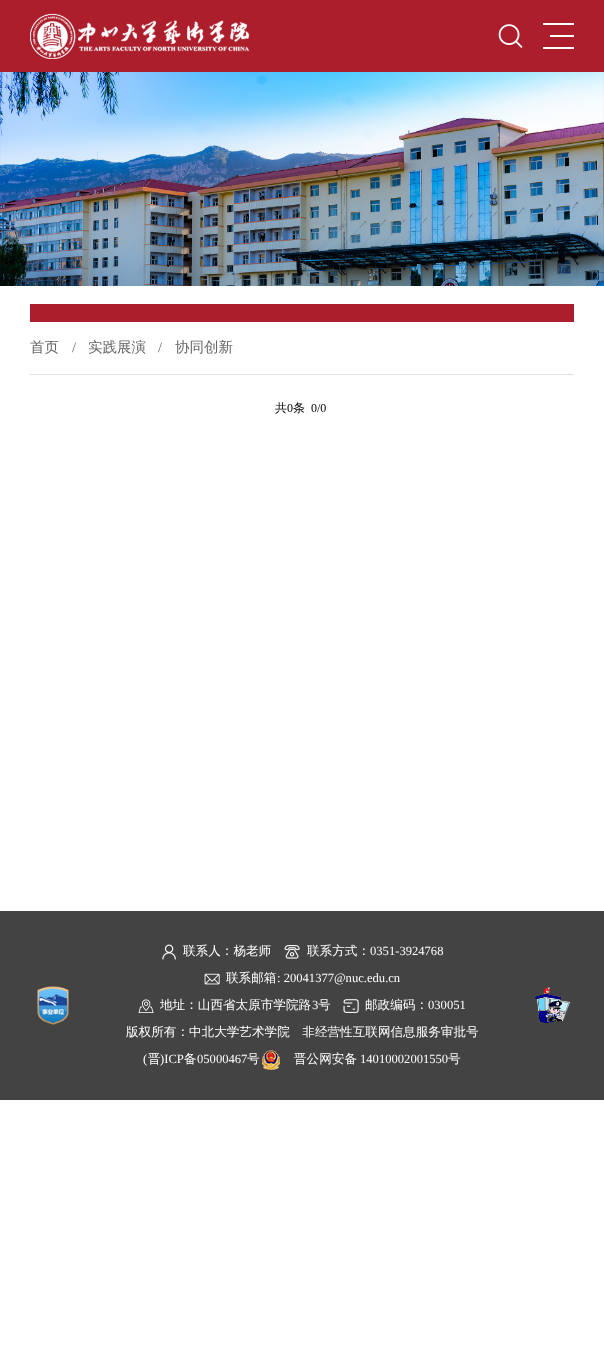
<?xml version="1.0" encoding="UTF-8"?>
<svg xmlns="http://www.w3.org/2000/svg" xmlns:xlink="http://www.w3.org/1999/xlink" width="604" height="1365">
  <rect width="100%" height="100%" fill="#ffffff" />
  <rect width="604" height="72" fill="#ac1e2b" />
  <image x="30" y="13" width="220" height="46" xlink:href="image1.png" />
  <image x="498" y="24" width="25" height="24" xlink:href="image2.png" />
  <rect x="543" y="23" width="31" height="2" fill="#ffffff" />
  <rect x="550" y="35" width="24" height="2" fill="#ffffff" />
  <rect x="543" y="47" width="31" height="2" fill="#ffffff" />
  <image x="0" y="72" width="604" height="214" xlink:href="image3.png" />
  <rect x="30" y="304" width="544" height="18" fill="#ac1e2b" />
  <rect x="30" y="374" width="544" height="1" fill="#e1e1e1" />
  <rect y="911" width="604" height="189" fill="#434343" />
  <image x="37" y="986" width="32" height="39" xlink:href="image4.png" />
  <image x="162" y="944" width="14" height="16" xlink:href="image5.png" />
  <image x="284" y="945" width="16" height="14" xlink:href="image6.png" />
  <image x="204" y="973" width="16" height="12" xlink:href="image7.png" />
  <image x="138" y="999" width="16" height="14" xlink:href="image8.png" />
  <image x="343" y="999" width="16" height="14" xlink:href="image9.png" />
  <image x="262" y="1050" width="18" height="20" xlink:href="image10.png" />
  <image x="534" y="987" width="37" height="37" xlink:href="image11.png" />
  <text x="30" y="352" style="font-family: WenQuanYi Zen Hei; font-size: 14.5px; font-weight: 500; fill: #666666">首页</text>
  <text x="72" y="352" style="font-family: Liberation Serif; font-size: 14.5px; fill: #666666">/</text>
  <text x="88" y="352" style="font-family: WenQuanYi Zen Hei; font-size: 14.5px; font-weight: 500; fill: #666666">实践展演</text>
  <text x="158" y="352" style="font-family: Liberation Serif; font-size: 14.5px; fill: #666666">/</text>
  <text x="175" y="352" style="font-family: WenQuanYi Zen Hei; font-size: 14.5px; font-weight: 500; fill: #666666">协同创新</text>
  <text x="275" y="412" style="font-family: WenQuanYi Zen Hei; font-size: 12px; font-weight: 500; fill: #000000">共</text>
  <text x="287" y="412" style="font-family: Liberation Serif; font-size: 12px; fill: #000000">0</text>
  <text x="293" y="412" style="font-family: WenQuanYi Zen Hei; font-size: 12px; font-weight: 500; fill: #000000">条</text>
  <text x="311" y="412" style="font-family: Liberation Serif; font-size: 12px; fill: #000000">0/0</text>
  <text x="183" y="955" style="font-family: WenQuanYi Zen Hei; font-size: 12.6px; font-weight: 500; fill: #ffffff">联系人：杨老师</text>
  <text x="307" y="955" style="font-family: WenQuanYi Zen Hei; font-size: 12.6px; font-weight: 500; fill: #ffffff">联系方式：</text>
  <text x="370" y="955" style="font-family: Liberation Serif; font-size: 12.6px; fill: #ffffff">0351-3924768</text>
  <text x="226" y="982" style="font-family: WenQuanYi Zen Hei; font-size: 12.6px; font-weight: 500; fill: #ffffff">联系邮箱</text>
  <text x="277" y="982" style="font-family: Liberation Serif; font-size: 12.6px; fill: #ffffff">: 20041377@nuc.edu.cn</text>
  <text x="160" y="1009" style="font-family: WenQuanYi Zen Hei; font-size: 12.6px; font-weight: 500; fill: #ffffff">地址：山西省太原市学院路</text>
  <text x="312" y="1009" style="font-family: Liberation Serif; font-size: 12.6px; fill: #ffffff">3</text>
  <text x="318" y="1009" style="font-family: WenQuanYi Zen Hei; font-size: 12.6px; font-weight: 500; fill: #ffffff">号</text>
  <text x="365" y="1009" style="font-family: WenQuanYi Zen Hei; font-size: 12.6px; font-weight: 500; fill: #ffffff">邮政编码：</text>
  <text x="428" y="1009" style="font-family: Liberation Serif; font-size: 12.6px; fill: #ffffff">030051</text>
  <text x="126" y="1036" style="font-family: WenQuanYi Zen Hei; font-size: 12.6px; font-weight: 500; fill: #ffffff">版权所有：中北大学艺术学院　非经营性互联网信息服务审批号</text>
  <text x="143" y="1063" style="font-family: Liberation Serif; font-size: 12.6px; fill: #ffffff">(</text>
  <text x="148" y="1063" style="font-family: WenQuanYi Zen Hei; font-size: 12.6px; font-weight: 500; fill: #ffffff">晋</text>
  <text x="160" y="1063" style="font-family: Liberation Serif; font-size: 12.6px; fill: #ffffff">)ICP</text>
  <text x="184" y="1063" style="font-family: WenQuanYi Zen Hei; font-size: 12.6px; font-weight: 500; fill: #ffffff">备</text>
  <text x="197" y="1063" style="font-family: Liberation Serif; font-size: 12.6px; fill: #ffffff">05000467</text>
  <text x="247" y="1063" style="font-family: WenQuanYi Zen Hei; font-size: 12.6px; font-weight: 500; fill: #ffffff">号</text>
  <text x="294" y="1063" style="font-family: WenQuanYi Zen Hei; font-size: 12.6px; font-weight: 500; fill: #ffffff">晋公网安备</text>
  <text x="360" y="1063" style="font-family: Liberation Serif; font-size: 12.6px; fill: #ffffff">14010002001550</text>
  <text x="448" y="1063" style="font-family: WenQuanYi Zen Hei; font-size: 12.6px; font-weight: 500; fill: #ffffff">号</text>
</svg>
